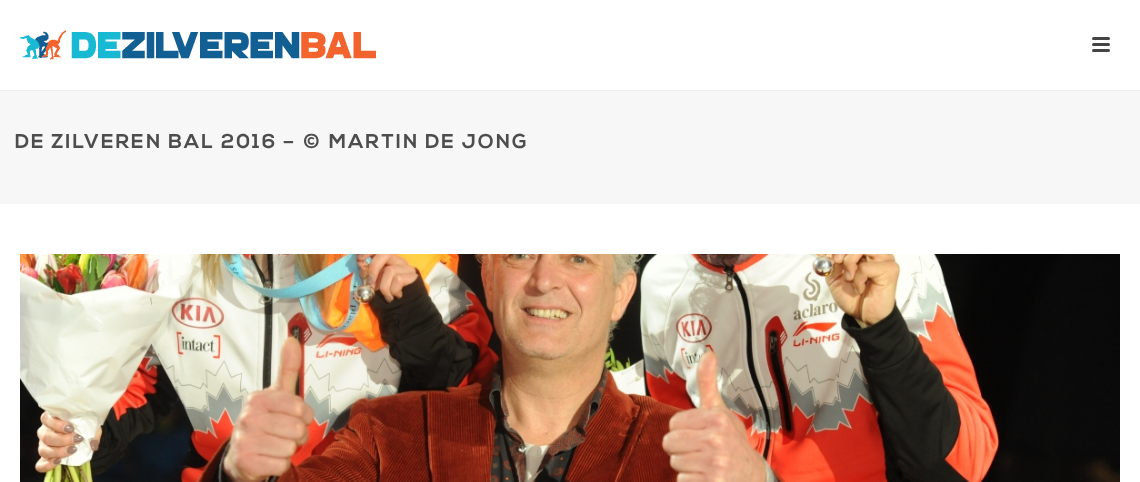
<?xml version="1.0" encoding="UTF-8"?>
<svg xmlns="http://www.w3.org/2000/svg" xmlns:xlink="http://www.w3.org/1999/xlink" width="1140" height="482">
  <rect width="100%" height="100%" fill="#ffffff" />
  <rect y="91" width="1140" height="113" fill="#f7f7f7" />
  <rect y="90" width="1140" height="1" fill="#ededed" />
  <image x="20" y="30" width="356" height="30" xlink:href="image1.png" />
  <rect x="1092" y="37" width="18" height="3" rx="1.5" fill="#444444" />
  <rect x="1092" y="43" width="18" height="3" rx="1.5" fill="#444444" />
  <rect x="1092" y="49" width="18" height="3" rx="1.5" fill="#444444" />
  <image x="20" y="254" width="1100" height="228" xlink:href="image2.png" />
  <text x="15" y="148" style="font-family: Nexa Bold; font-size: 20px; font-weight: bold; letter-spacing: 2px; fill: #4d4d4d">DE ZILVEREN BAL 2016 – © MARTIN DE JONG</text>
</svg>
